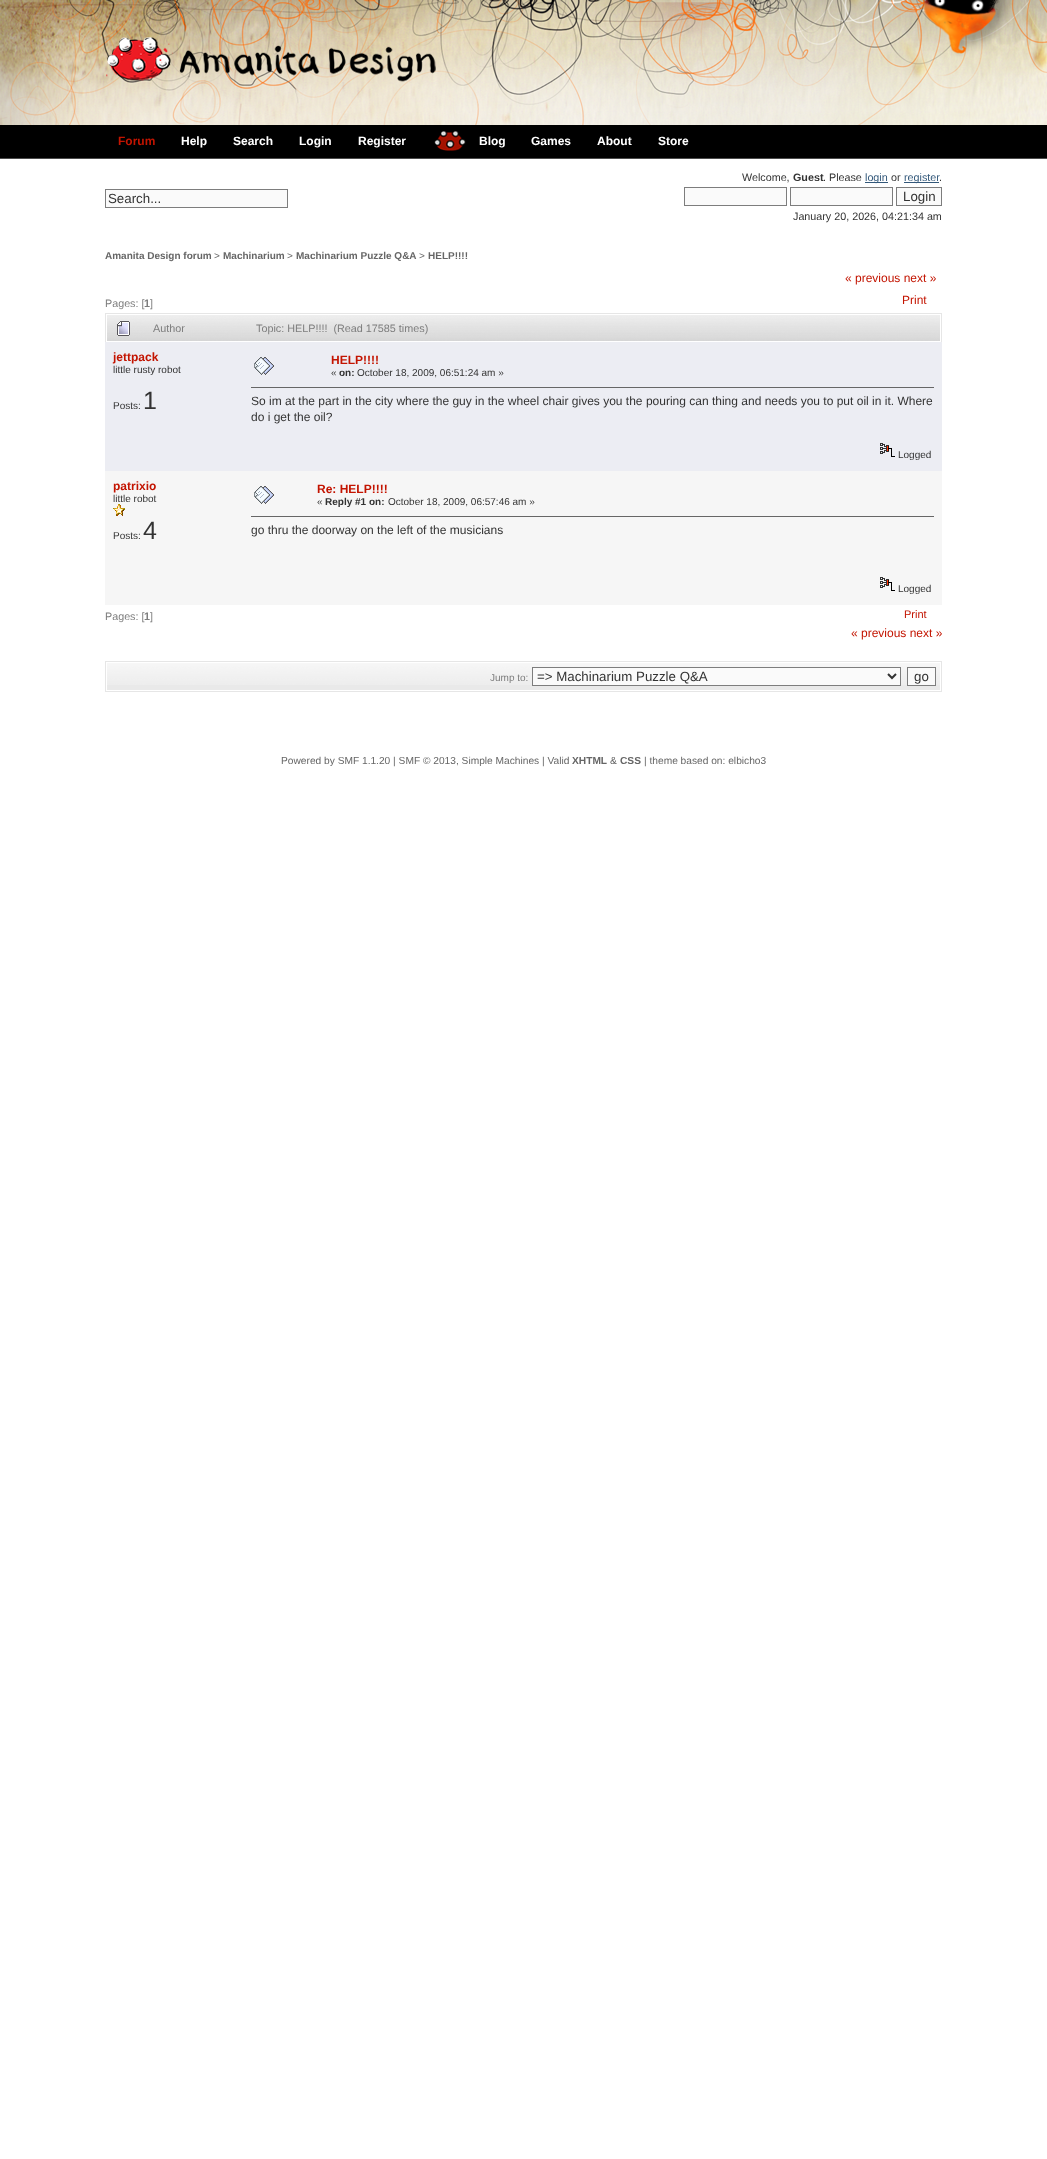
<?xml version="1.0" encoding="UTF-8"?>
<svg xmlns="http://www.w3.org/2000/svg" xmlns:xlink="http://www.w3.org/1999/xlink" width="1047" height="2159">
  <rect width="100%" height="100%" fill="#ffffff" />
  <image x="0" y="0" width="1047" height="125" xlink:href="image1.png" />
  <image x="106" y="37" width="330" height="45" xlink:href="image2.png" />
  <rect y="125" width="1047" height="33" fill="#000000" />
  <rect y="158" width="1047" height="1" fill="#4c4c4c" />
  <image x="434" y="131" width="32" height="20" xlink:href="image3.png" />
  <rect x="105.5" y="189.5" width="182" height="18" fill="#fafafa" stroke="#7d7d7d" />
  <rect x="865" y="182" width="23" height="1" fill="#33587a" />
  <rect x="904" y="182" width="35" height="1" fill="#33587a" />
  <rect x="684.5" y="187.5" width="102" height="18" fill="#fafafa" stroke="#7d7d7d" />
  <rect x="790.5" y="187.5" width="102" height="18" fill="#fafafa" stroke="#7d7d7d" />
  <rect x="896.5" y="187.5" width="45" height="18" fill="#fafafa" stroke="#7d7d7d" />
  <rect x="105" y="313" width="837" height="1" fill="#e6e6e6" />
  <rect x="941" y="313" width="1" height="29" fill="#e6e6e6" />
  <rect x="105" y="313" width="1" height="29" fill="#e6e6e6" />
  <image x="107" y="315" width="36" height="26" xlink:href="image4.png" />
  <image x="117" y="321" width="13" height="15" xlink:href="image5.png" />
  <image x="143" y="315" width="107" height="26" xlink:href="image6.png" />
  <image x="250" y="315" width="690" height="26" xlink:href="image7.png" />
  <rect x="105" y="342" width="837" height="129" fill="#ecedf3" />
  <image x="254" y="357" width="20" height="18" xlink:href="image8.png" />
  <rect x="251" y="387" width="683" height="1" fill="#666666" />
  <image x="880" y="443" width="15" height="14" xlink:href="image9.png" />
  <rect x="105" y="471" width="837" height="134" fill="#f6f6f6" />
  <image x="113" y="504" width="12" height="12" xlink:href="image10.png" />
  <image x="254" y="486" width="20" height="18" xlink:href="image11.png" />
  <rect x="251" y="516" width="683" height="1" fill="#666666" />
  <image x="880" y="577" width="15" height="14" xlink:href="image12.png" />
  <rect x="105.5" y="661.5" width="836" height="30" fill="none" stroke="#e6e6e6" />
  <rect x="107" y="685" width="833" height="5" fill="#e9e9e9" />
  <image x="107" y="663" width="833" height="22" xlink:href="image13.png" />
  <rect x="532.5" y="667.5" width="368" height="18" fill="#fafafa" stroke="#7d7d7d" />
  <path d="M 888 674 l 4 4 l 4 -4" fill="none" stroke="#333333" stroke-width="2" />
  <rect x="907.5" y="667.5" width="28" height="18" fill="#fafafa" stroke="#7d7d7d" />
  <text x="118" y="145" style="font-family: Liberation Sans; font-size: 12px; font-weight: bold; fill: #c31401">Forum</text>
  <text x="181" y="145" style="font-family: Liberation Sans; font-size: 12px; font-weight: bold; fill: #ffffff">Help</text>
  <text x="233" y="145" style="font-family: Liberation Sans; font-size: 12px; font-weight: bold; fill: #ffffff">Search</text>
  <text x="299" y="145" style="font-family: Liberation Sans; font-size: 12px; font-weight: bold; fill: #ffffff">Login</text>
  <text x="358" y="145" style="font-family: Liberation Sans; font-size: 12px; font-weight: bold; fill: #ffffff">Register</text>
  <text x="479" y="145" style="font-family: Liberation Sans; font-size: 12px; font-weight: bold; fill: #ffffff">Blog</text>
  <text x="531" y="145" style="font-family: Liberation Sans; font-size: 12px; font-weight: bold; fill: #ffffff">Games</text>
  <text x="597" y="145" style="font-family: Liberation Sans; font-size: 12px; font-weight: bold; fill: #ffffff">About</text>
  <text x="658" y="145" style="font-family: Liberation Sans; font-size: 12px; font-weight: bold; fill: #ffffff">Store</text>
  <text x="108" y="203" style="font-family: Liberation Sans; font-size: 13.3px; fill: #333333">Search...</text>
  <text x="742" y="181" style="font-family: Liberation Sans; font-size: 10.75px; fill: #333333">Welcome,</text>
  <text x="793" y="181" style="font-family: Liberation Sans; font-size: 10.75px; font-weight: bold; fill: #333333">Guest</text>
  <text x="823" y="181" style="font-family: Liberation Sans; font-size: 10.75px; fill: #333333">. Please</text>
  <text x="865" y="181" style="font-family: Liberation Sans; font-size: 10.75px; fill: #33587a">login</text>
  <text x="891" y="181" style="font-family: Liberation Sans; font-size: 10.75px; fill: #333333">or</text>
  <text x="904" y="181" style="font-family: Liberation Sans; font-size: 10.75px; fill: #33587a">register</text>
  <text x="939" y="181" style="font-family: Liberation Sans; font-size: 10.75px; fill: #333333">.</text>
  <text x="903" y="201" style="font-family: Liberation Sans; font-size: 13.3px; fill: #333333">Login</text>
  <text x="793" y="220" style="font-family: Liberation Sans; font-size: 10.75px; fill: #333333">January 20, 2026, 04:21:34 am</text>
  <text x="105" y="259" style="font-family: Liberation Sans; font-size: 10px; font-weight: bold; fill: #666666">Amanita Design forum</text>
  <text x="214" y="259" style="font-family: Liberation Sans; font-size: 10px; fill: #666666">&gt;</text>
  <text x="223" y="259" style="font-family: Liberation Sans; font-size: 10px; font-weight: bold; fill: #666666">Machinarium</text>
  <text x="287" y="259" style="font-family: Liberation Sans; font-size: 10px; fill: #666666">&gt;</text>
  <text x="296" y="259" style="font-family: Liberation Sans; font-size: 10px; font-weight: bold; fill: #666666">Machinarium Puzzle Q&amp;A</text>
  <text x="419" y="259" style="font-family: Liberation Sans; font-size: 10px; fill: #666666">&gt;</text>
  <text x="428" y="259" style="font-family: Liberation Sans; font-size: 10px; font-weight: bold; fill: #666666">HELP!!!!</text>
  <text x="105" y="307" style="font-family: Liberation Sans; font-size: 10.75px; fill: #7d7d7d">Pages: [</text>
  <text x="144" y="307" style="font-family: Liberation Sans; font-size: 10.75px; font-weight: bold; fill: #7d7d7d">1</text>
  <text x="150" y="307" style="font-family: Liberation Sans; font-size: 10.75px; fill: #7d7d7d">]</text>
  <text x="845" y="282" style="font-family: Liberation Sans; font-size: 12px; fill: #c31401">« previous next »</text>
  <text x="902" y="304" style="font-family: Liberation Sans; font-size: 12px; fill: #c31401">Print</text>
  <text x="153" y="332" style="font-family: Liberation Sans; font-size: 10.8px; fill: #7d7d7d">Author</text>
  <text x="256" y="332" style="font-family: Liberation Sans; font-size: 10.8px; fill: #7d7d7d" xml:space="preserve">Topic: HELP!!!!  (Read 17585 times)</text>
  <text x="113" y="361" style="font-family: Liberation Sans; font-size: 12px; font-weight: bold; fill: #c31401">jettpack</text>
  <text x="113" y="373" style="font-family: Liberation Sans; font-size: 10px; fill: #333333">little rusty robot</text>
  <text x="113" y="409" style="font-family: Liberation Sans; font-size: 10px; fill: #333333">Posts:</text>
  <text x="143" y="409" style="font-family: Liberation Sans; font-size: 25px; fill: #333333">1</text>
  <text x="331" y="364" style="font-family: Liberation Sans; font-size: 12px; font-weight: bold; fill: #c31401">HELP!!!!</text>
  <text x="331" y="376" style="font-family: Liberation Sans; font-size: 10px; fill: #333333">«</text>
  <text x="339" y="376" style="font-family: Liberation Sans; font-size: 10px; font-weight: bold; fill: #333333">on:</text>
  <text x="357" y="376" style="font-family: Liberation Sans; font-size: 10px; fill: #333333">October 18, 2009, 06:51:24 am »</text>
  <text x="251" y="405" style="font-family: Liberation Sans; font-size: 12px; fill: #333333">So im at the part in the city where the guy in the wheel chair gives you the pouring can thing and needs you to put oil in it. Where</text>
  <text x="251" y="421" style="font-family: Liberation Sans; font-size: 12px; fill: #333333">do i get the oil?</text>
  <text x="898" y="458" style="font-family: Liberation Sans; font-size: 10px; fill: #333333">Logged</text>
  <text x="113" y="490" style="font-family: Liberation Sans; font-size: 12px; font-weight: bold; fill: #c31401">patrixio</text>
  <text x="113" y="502" style="font-family: Liberation Sans; font-size: 10px; fill: #333333">little robot</text>
  <text x="113" y="539" style="font-family: Liberation Sans; font-size: 10px; fill: #333333">Posts:</text>
  <text x="143" y="539" style="font-family: Liberation Sans; font-size: 25px; fill: #333333">4</text>
  <text x="317" y="493" style="font-family: Liberation Sans; font-size: 12px; font-weight: bold; fill: #c31401">Re: HELP!!!!</text>
  <text x="317" y="505" style="font-family: Liberation Sans; font-size: 10px; fill: #333333">«</text>
  <text x="325" y="505" style="font-family: Liberation Sans; font-size: 10px; font-weight: bold; fill: #333333">Reply #1 on:</text>
  <text x="388" y="505" style="font-family: Liberation Sans; font-size: 10px; fill: #333333">October 18, 2009, 06:57:46 am »</text>
  <text x="251" y="534" style="font-family: Liberation Sans; font-size: 12px; fill: #333333">go thru the doorway on the left of the musicians</text>
  <text x="898" y="592" style="font-family: Liberation Sans; font-size: 10px; fill: #333333">Logged</text>
  <text x="105" y="620" style="font-family: Liberation Sans; font-size: 10.75px; fill: #7d7d7d">Pages: [</text>
  <text x="144" y="620" style="font-family: Liberation Sans; font-size: 10.75px; font-weight: bold; fill: #7d7d7d">1</text>
  <text x="150" y="620" style="font-family: Liberation Sans; font-size: 10.75px; fill: #7d7d7d">]</text>
  <text x="904" y="618" style="font-family: Liberation Sans; font-size: 11px; fill: #c31401">Print</text>
  <text x="851" y="637" style="font-family: Liberation Sans; font-size: 12px; fill: #c31401">« previous next »</text>
  <text x="490" y="681" style="font-family: Liberation Sans; font-size: 10px; fill: #7d7d7d">Jump to:</text>
  <text x="537" y="681" style="font-family: Liberation Sans; font-size: 13.3px; fill: #333333">=&gt; Machinarium Puzzle Q&amp;A</text>
  <text x="914" y="681" style="font-family: Liberation Sans; font-size: 13.3px; fill: #333333">go</text>
  <text x="281" y="764" style="font-family: Liberation Sans; font-size: 10.2px; fill: #666666">Powered by SMF 1.1.20 | SMF © 2013, Simple Machines | Valid</text>
  <text x="572" y="764" style="font-family: Liberation Sans; font-size: 10.2px; font-weight: bold; fill: #666666">XHTML</text>
  <text x="610" y="764" style="font-family: Liberation Sans; font-size: 10.2px; fill: #666666">&amp;</text>
  <text x="620" y="764" style="font-family: Liberation Sans; font-size: 10.2px; font-weight: bold; fill: #666666">CSS</text>
  <text x="644" y="764" style="font-family: Liberation Sans; font-size: 10.2px; fill: #666666">| theme based on: elbicho3</text>
</svg>
